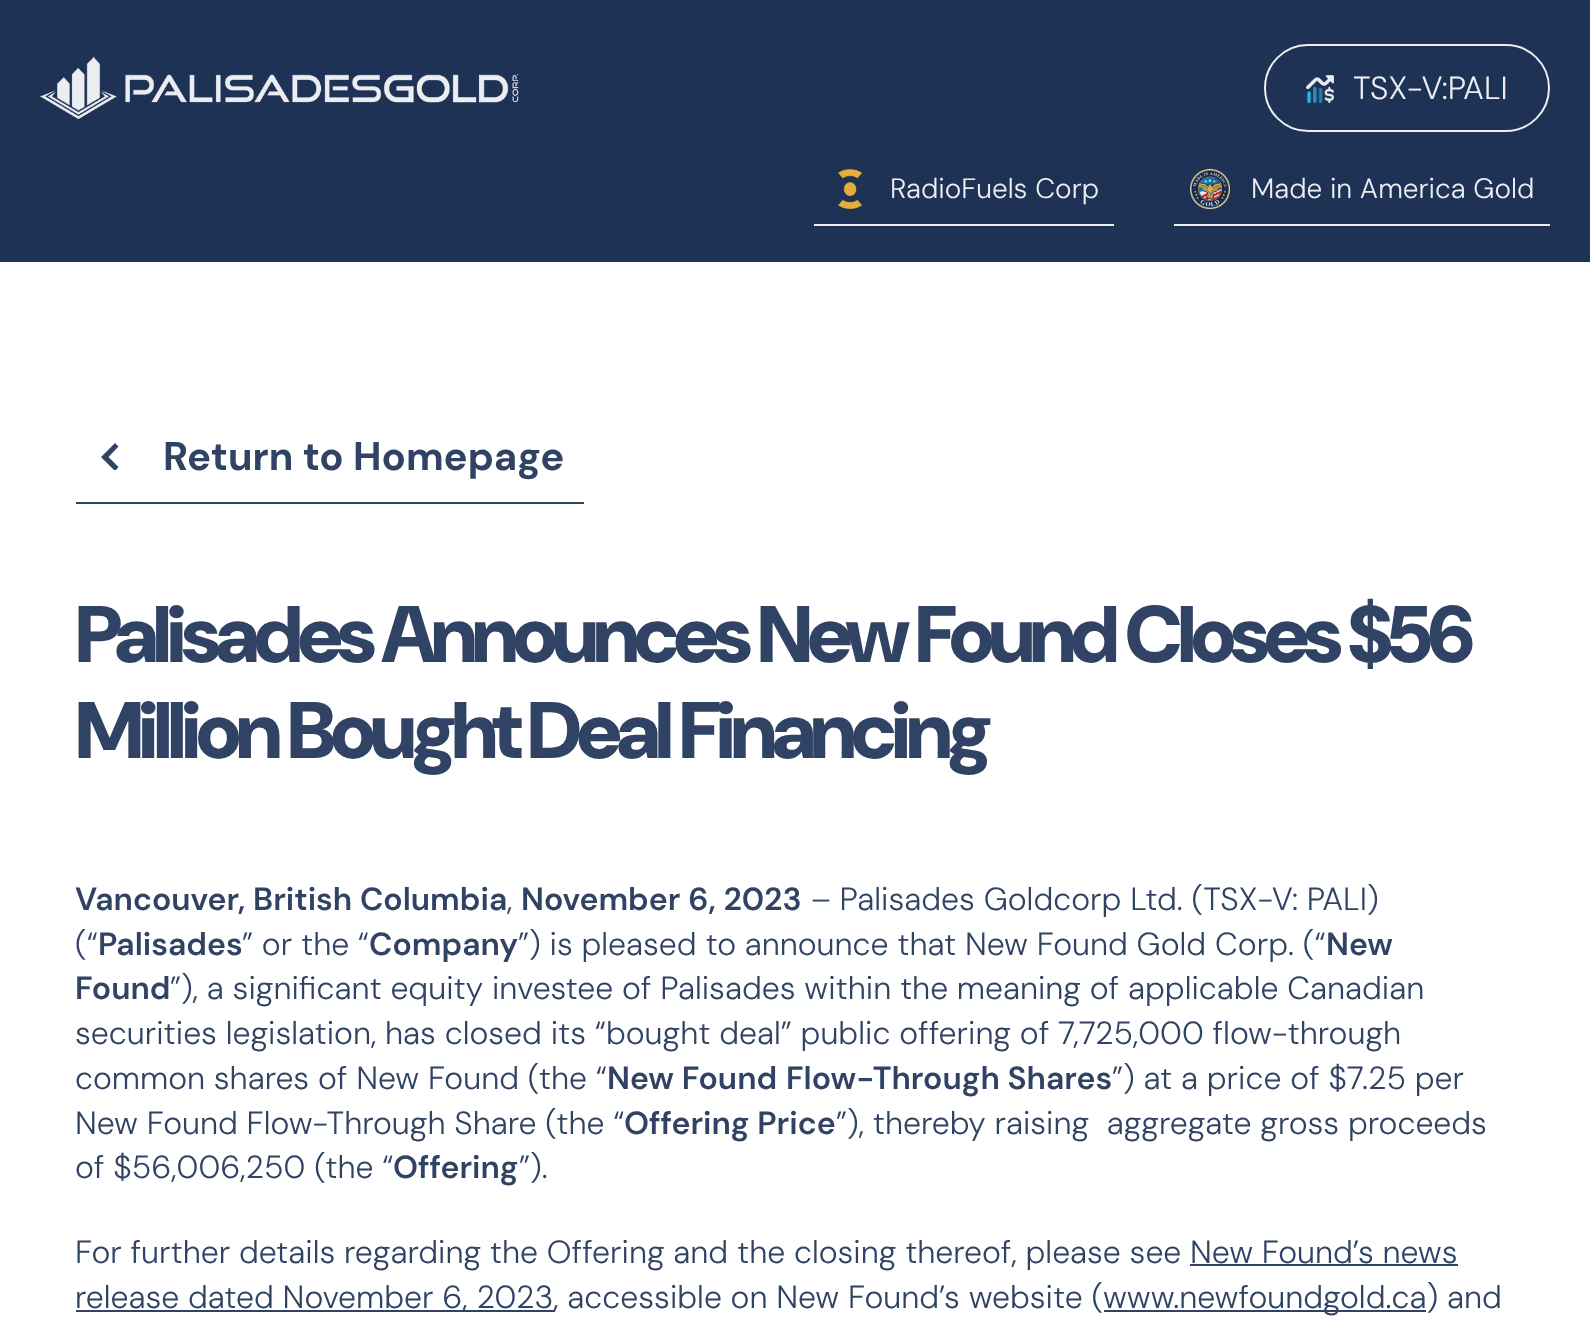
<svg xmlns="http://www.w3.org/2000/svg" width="1590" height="1324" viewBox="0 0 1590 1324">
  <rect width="100%" height="100%" fill="rgb(255,255,255)"/>
  <rect x="0" y="0" width="1590" height="262" fill="rgb(30,50,86)"/>
  <image x="40" y="57" width="479" height="62" href="pic1.png"/>
  <rect x="1265" y="45" width="284" height="86" rx="43" fill="none" stroke="rgb(236,238,241)" stroke-width="2"/>
  <image x="1306" y="75" width="28" height="28" href="pic2.png"/>
  <text x="1353" y="99" font-family="DM Sans" font-size="32" font-weight="300" fill="rgb(236,238,241)">TSX-V:PALI</text>
  <rect x="814" y="224" width="300" height="2" fill="rgb(236,238,241)"/>
  <image x="838" y="169" width="24" height="40" href="pic3.png"/>
  <text x="890" y="198" font-family="'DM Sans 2'" font-size="28" font-weight="300" fill="rgb(236,238,241)">RadioFuels Corp</text>
  <rect x="1174" y="224" width="376" height="2" fill="rgb(236,238,241)"/>
  <image x="1190" y="168" width="40" height="41" href="pic4.png"/>
  <text x="1251" y="198" font-family="'DM Sans 2'" font-size="28" font-weight="300" fill="rgb(236,238,241)">Made in America Gold</text>
  <rect x="76" y="502" width="508" height="2" fill="rgb(49,67,100)"/>
  <path d="M118.5 467L116 470H114L101 457L115 443L118.5 446.5L108.5 457Z" fill="rgb(49,67,100)"/>
  <text x="163" y="470" font-family="DM Sans" font-size="40" font-weight="bold" fill="rgb(49,67,100)">Return to Homepage</text>
  <g font-family="DM Sans" font-size="80" font-weight="900" letter-spacing="-5.6" fill="rgb(49,67,100)">
    <text>
      <tspan x="75" y="662">Palisades Announces New Found Closes $56</tspan>
      <tspan x="75" y="758">Million Bought Deal Financing</tspan>
    </text>
  </g>
  <text x="75" y="910" font-family="DM Sans" font-size="32" font-weight="600" fill="rgb(49,67,100)">Vancouver, British Columbia</text>
  <text x="507" y="910" font-family="DM Sans" font-size="32" font-weight="300" fill="rgb(49,67,100)">,</text>
  <text x="521" y="910" font-family="DM Sans" font-size="32" font-weight="600" fill="rgb(49,67,100)">November 6, 2023</text>
  <g font-family="DM Sans" font-size="32" font-weight="300" fill="rgb(49,67,100)">
    <text x="811" y="910">– Palisades Goldcorp Ltd. (TSX-V: PALI)</text>
    <text x="75" y="955">(“</text>
  </g>
  <text x="98" y="955" font-family="DM Sans" font-size="32" font-weight="600" fill="rgb(49,67,100)">Palisades</text>
  <text x="242" y="955" font-family="DM Sans" font-size="32" font-weight="300" fill="rgb(49,67,100)">” or the “</text>
  <text x="369" y="955" font-family="DM Sans" font-size="32" font-weight="600" fill="rgb(49,67,100)">Company</text>
  <text x="518" y="955" font-family="DM Sans" font-size="32" font-weight="300" fill="rgb(49,67,100)">”) is pleased to announce that New Found Gold Corp. (“</text>
  <g font-family="DM Sans" font-size="32" font-weight="600" fill="rgb(49,67,100)">
    <text x="1326" y="955">New</text>
    <text x="75" y="999">Found</text>
  </g>
  <g font-family="DM Sans" font-size="32" font-weight="300" fill="rgb(49,67,100)">
    <text x="170" y="999">”), a significant equity investee of Palisades within the meaning of applicable Canadian</text>
    <text>
      <tspan x="75" y="1044">securities legislation, has closed its “bought deal” public offering of 7,725,000 flow-through</tspan>
      <tspan x="75" y="1089">common shares of New Found (the “</tspan>
    </text>
  </g>
  <g font-family="DM Sans" font-size="32" font-weight="600" fill="rgb(49,67,100)">
    <text x="607" y="1089">New Found</text>
    <text x="786" y="1089">Flow-Through Shares</text>
  </g>
  <g font-family="DM Sans" font-size="32" font-weight="300" fill="rgb(49,67,100)">
    <text x="1112" y="1089">”) at a price of $7.25 per</text>
    <text x="75" y="1134">New Found Flow-Through Share (the “</text>
  </g>
  <text x="624" y="1134" font-family="DM Sans" font-size="32" font-weight="600" fill="rgb(49,67,100)">Offering Price</text>
  <g font-family="DM Sans" font-size="32" font-weight="300" fill="rgb(49,67,100)">
    <text x="836" y="1134" xml:space="preserve">”), thereby raising  aggregate gross proceeds</text>
    <text x="75" y="1178">of $56,006,250 (the “</text>
  </g>
  <text x="393" y="1178" font-family="DM Sans" font-size="32" font-weight="600" fill="rgb(49,67,100)">Offering</text>
  <g font-family="DM Sans" font-size="32" font-weight="300" fill="rgb(49,67,100)">
    <text x="519" y="1178">”).</text>
    <text x="75" y="1263">For further details regarding the Offering and the closing thereof, please see New Found’s news</text>
  </g>
  <rect x="76" y="1310" width="478" height="2" fill="rgb(49,67,100)"/>
  <text x="75" y="1308" font-family="DM Sans" font-size="32" font-weight="300" fill="rgb(49,67,100)">release dated November 6, 2023, accessible on New Found’s website (</text>
  <rect x="1190" y="1264" width="268" height="2" fill="rgb(49,67,100)"/>
  <rect x="1104" y="1310" width="322" height="2" fill="rgb(49,67,100)"/>
  <text x="1103" y="1308" font-family="DM Sans" font-size="32" font-weight="300" fill="rgb(49,67,100)">www.newfoundgold.ca) and</text>
</svg>
